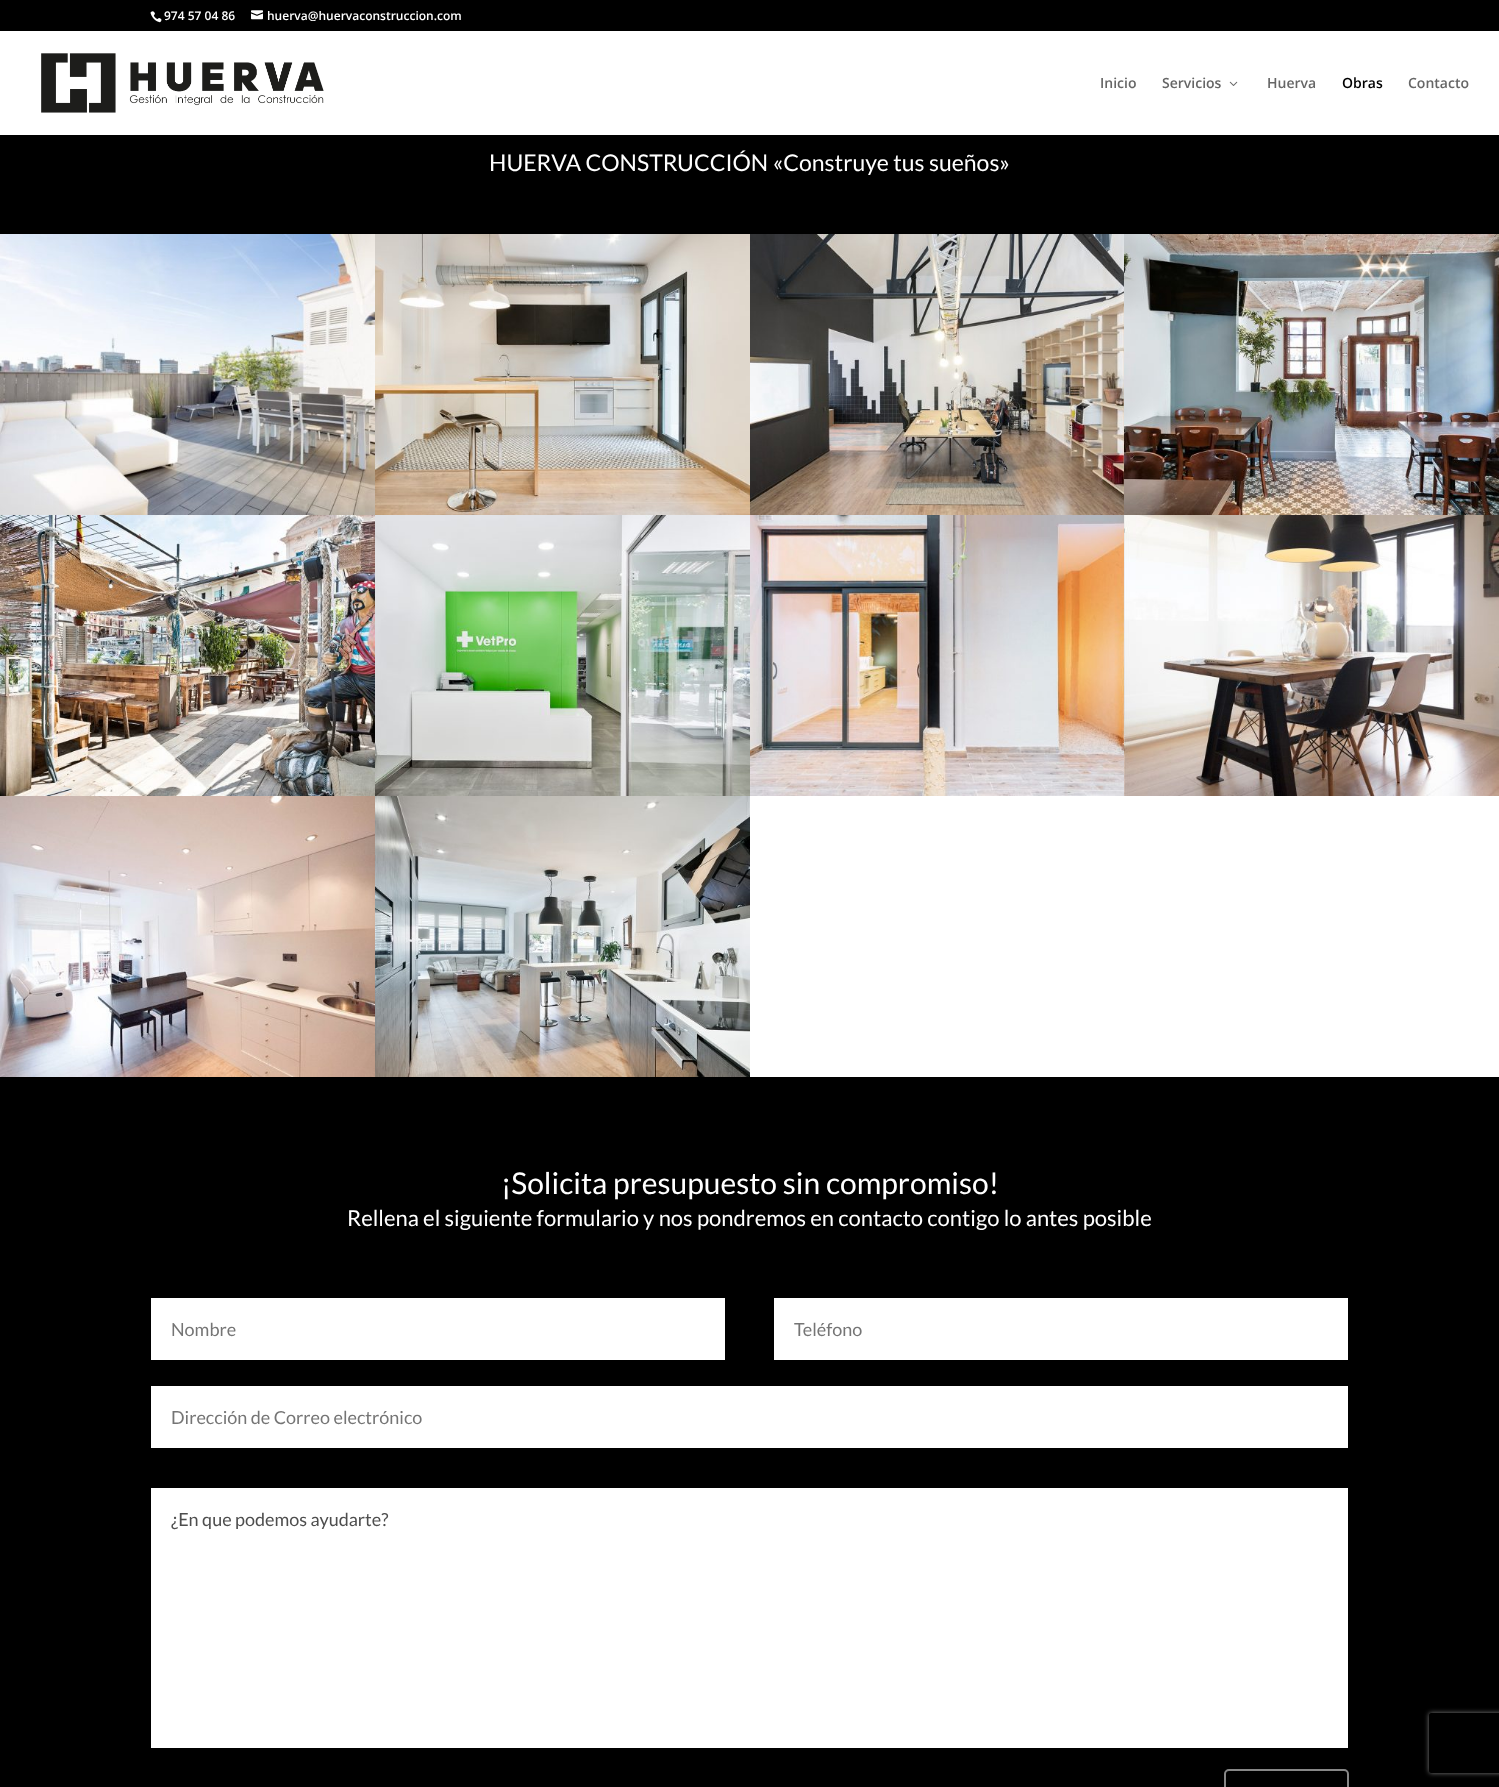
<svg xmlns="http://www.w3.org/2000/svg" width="1499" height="1787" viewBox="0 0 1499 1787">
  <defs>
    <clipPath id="clip1"><path d="M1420 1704H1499V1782H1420ZM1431 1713H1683C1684 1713 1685 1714 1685 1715V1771C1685 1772 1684 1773 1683 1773H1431C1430 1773 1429 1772 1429 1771V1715C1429 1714 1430 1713 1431 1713Z" clip-rule="evenodd"/></clipPath>
  </defs>
  <rect width="100%" height="100%" fill="rgb(255,255,255)"/>
  <rect x="0" y="0" width="1499" height="31" fill="rgb(0,0,0)"/>
  <image x="150" y="11" width="12" height="12" href="pic1.png"/>
  <text x="164" y="20" font-family="Open Sans" font-size="12" font-weight="600" fill="rgb(255,255,255)">974 57 04 86</text>
  <image x="251" y="10" width="12" height="10" href="pic2.png"/>
  <text x="267" y="20" font-family="Open Sans" font-size="12" font-weight="600" fill="rgb(255,255,255)">huerva@huervaconstruccion.com</text>
  <image x="41" y="53" width="283" height="60" href="pic3.png"/>
  <g font-family="Open Sans" font-size="14" font-weight="600" fill="rgb(102,102,102)">
    <text x="1100" y="88">Inicio</text>
    <text x="1162" y="88">Servicios</text>
  </g>
  <image x="1229" y="81" width="9" height="5" href="pic4.png"/>
  <text x="1267" y="88" font-family="Open Sans" font-size="14" font-weight="600" fill="rgb(102,102,102)">Huerva</text>
  <text x="1342" y="88" font-family="Open Sans" font-size="14" font-weight="600" fill="rgb(0,0,0)">Obras</text>
  <text x="1408" y="88" font-family="Open Sans" font-size="14" font-weight="600" fill="rgb(102,102,102)">Contacto</text>
  <rect x="0" y="135" width="1499" height="99" fill="rgb(0,0,0)"/>
  <text x="489" y="171" font-family="Lato" font-size="23" fill="rgb(255,255,255)">HUERVA CONSTRUCCIÓN «Construye tus sueños»</text>
  <image x="0" y="234" width="375" height="281" href="pic5.png"/>
  <image x="375" y="234" width="375" height="281" href="pic6.png"/>
  <image x="750" y="234" width="374" height="281" href="pic7.png"/>
  <image x="1124" y="234" width="375" height="281" href="pic8.png"/>
  <image x="0" y="515" width="375" height="281" href="pic9.png"/>
  <image x="375" y="515" width="375" height="281" href="pic10.png"/>
  <image x="750" y="515" width="374" height="281" href="pic11.png"/>
  <image x="1124" y="515" width="375" height="281" href="pic12.png"/>
  <image x="0" y="796" width="375" height="281" href="pic13.png"/>
  <image x="375" y="796" width="375" height="281" href="pic14.png"/>
  <rect x="0" y="1077" width="1499" height="710" fill="rgb(0,0,0)"/>
  <text x="501" y="1194" font-family="Lato" font-size="30" fill="rgb(255,255,255)">¡Solicita presupuesto sin compromiso!</text>
  <text x="347" y="1226" font-family="Lato" font-size="22" fill="rgb(255,255,255)">Rellena el siguiente formulario y nos pondremos en contacto contigo lo antes posible</text>
  <rect x="151" y="1298" width="574" height="62" fill="rgb(255,255,255)"/>
  <text x="171" y="1336" font-family="Lato" font-size="18" fill="rgb(117,117,117)">Nombre</text>
  <rect x="774" y="1298" width="574" height="62" fill="rgb(255,255,255)"/>
  <text x="794" y="1336" font-family="Lato" font-size="18" fill="rgb(117,117,117)">Teléfono</text>
  <rect x="151" y="1386" width="1197" height="62" fill="rgb(255,255,255)"/>
  <text x="171" y="1424" font-family="Lato" font-size="18" fill="rgb(117,117,117)">Dirección de Correo electrónico</text>
  <rect x="151" y="1488" width="1197" height="260" fill="rgb(255,255,255)"/>
  <text x="171" y="1526" font-family="Lato" font-size="18" fill="rgb(78,78,78)">¿En que podemos ayudarte?</text>
  <rect x="1225" y="1770" width="123" height="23" rx="4" fill="none" stroke="rgb(135,135,135)" stroke-width="2"/>
  <g clip-path="url(#clip1)">
    <rect x="1429" y="1713" width="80" height="60" rx="2" fill="rgb(128,128,128)" filter="blur(2.5px)"/>
  </g>
</svg>
